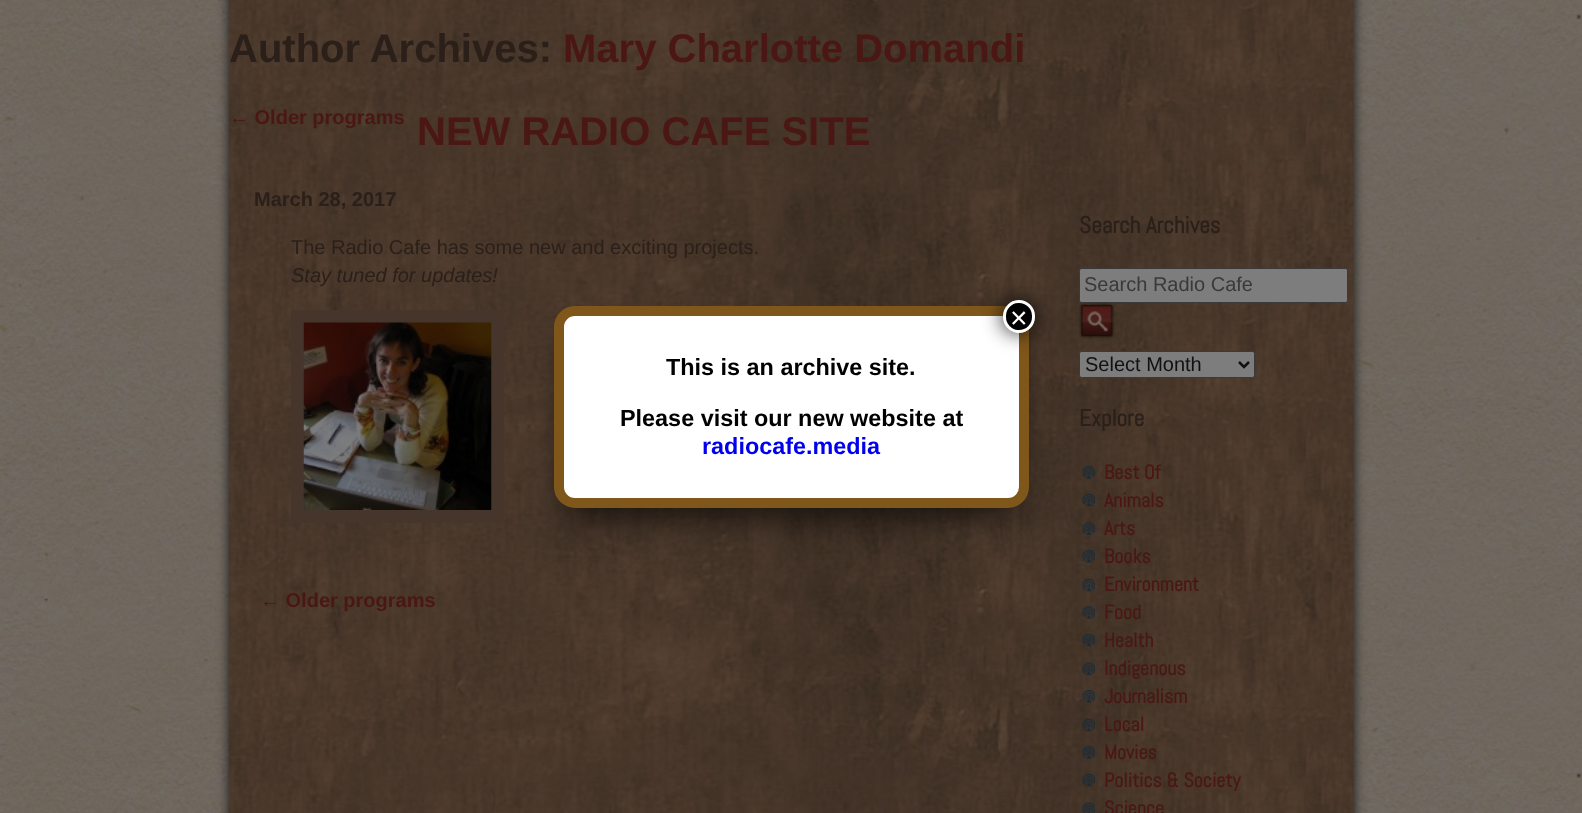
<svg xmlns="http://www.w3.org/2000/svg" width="1582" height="813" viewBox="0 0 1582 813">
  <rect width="100%" height="100%" fill="rgb(255,255,255)"/>
  <image x="0" y="0" width="1582" height="813" href="pic1.png"/>
  <rect x="229" y="-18" width="1125" height="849" fill="rgb(25,25,25)" filter="blur(6px)"/>
  <image x="228" y="0" width="1126" height="813" href="pic2.png"/>
  <text x="229" y="62" font-family="Liberation Sans" font-size="40" font-weight="bold" fill="rgb(42,31,25)">Author Archives:</text>
  <text x="563" y="62" font-family="Liberation Sans" font-size="40" font-weight="bold" fill="rgb(75,23,20)">Mary Charlotte Domandi</text>
  <text x="229" y="124" font-family="Liberation Sans" font-size="20" font-weight="bold" fill="rgb(75,23,20)">← Older programs</text>
  <text x="417" y="145" font-family="Liberation Sans" font-size="40" font-weight="bold" fill="rgb(75,23,20)">NEW RADIO CAFE SITE</text>
  <text x="1079" y="233" font-family="Abel" font-size="23.4" font-weight="bold" fill="rgb(42,31,25)">Search Archives</text>
  <rect x="1079.5" y="268.5" width="268" height="34" rx="2" fill="rgb(125,125,125)" stroke="rgb(58,58,58)"/>
  <text x="1084" y="291" font-family="Liberation Sans" font-size="20" fill="rgb(57,57,57)">Search Radio Cafe</text>
  <image x="1079" y="302" width="36" height="37" href="pic3.png"/>
  <rect x="1079.5" y="351.5" width="175" height="26" rx="2" fill="rgb(125,125,125)" stroke="rgb(58,58,58)"/>
  <path d="M1239 362L1244 367L1249 362" fill="none" stroke="rgb(17,17,17)" stroke-width="2.5"/>
  <text x="1085" y="371" font-family="Liberation Sans" font-size="20" fill="rgb(17,17,17)">Select Month</text>
  <text x="1079" y="426" font-family="Abel" font-size="23.4" font-weight="bold" fill="rgb(42,31,25)">Explore</text>
  <image x="1082" y="466" width="13" height="13" href="pic4.png"/>
  <text x="1104" y="479" font-family="Abel" font-size="20" font-weight="bold" fill="rgb(75,23,20)">Best Of</text>
  <image x="1082" y="493" width="13" height="14" href="pic5.png"/>
  <text x="1104" y="507" font-family="Abel" font-size="20" font-weight="bold" fill="rgb(75,23,20)">Animals</text>
  <image x="1082" y="522" width="13" height="13" href="pic6.png"/>
  <text x="1104" y="535" font-family="Abel" font-size="20" font-weight="bold" fill="rgb(75,23,20)">Arts</text>
  <image x="1082" y="550" width="13" height="13" href="pic7.png"/>
  <text x="1104" y="563" font-family="Abel" font-size="20" font-weight="bold" fill="rgb(75,23,20)">Books</text>
  <image x="1082" y="578" width="13" height="14" href="pic8.png"/>
  <text x="1104" y="591" font-family="Abel" font-size="20" font-weight="bold" fill="rgb(75,23,20)">Environment</text>
  <image x="1082" y="606" width="13" height="13" href="pic9.png"/>
  <text x="1104" y="619" font-family="Abel" font-size="20" font-weight="bold" fill="rgb(75,23,20)">Food</text>
  <image x="1082" y="633" width="13" height="14" href="pic10.png"/>
  <text x="1104" y="647" font-family="Abel" font-size="20" font-weight="bold" fill="rgb(75,23,20)">Health</text>
  <image x="1082" y="662" width="13" height="13" href="pic11.png"/>
  <text x="1104" y="675" font-family="Abel" font-size="20" font-weight="bold" fill="rgb(75,23,20)">Indigenous</text>
  <image x="1082" y="690" width="13" height="13" href="pic12.png"/>
  <text x="1104" y="703" font-family="Abel" font-size="20" font-weight="bold" fill="rgb(75,23,20)">Journalism</text>
  <image x="1082" y="718" width="13" height="14" href="pic13.png"/>
  <text x="1104" y="731" font-family="Abel" font-size="20" font-weight="bold" fill="rgb(75,23,20)">Local</text>
  <image x="1082" y="746" width="13" height="13" href="pic14.png"/>
  <text x="1104" y="759" font-family="Abel" font-size="20" font-weight="bold" fill="rgb(75,23,20)">Movies</text>
  <image x="1082" y="773" width="13" height="14" href="pic15.png"/>
  <text x="1104" y="787" font-family="Abel" font-size="20" font-weight="bold" fill="rgb(75,23,20)">Politics &amp; Society</text>
  <image x="1082" y="802" width="13" height="11" href="pic16.png"/>
  <text x="1104" y="815" font-family="Abel" font-size="20" font-weight="bold" fill="rgb(75,23,20)">Science</text>
  <text x="254" y="206" font-family="Liberation Sans" font-size="20" font-weight="bold" fill="rgb(42,31,25)">March 28, 2017</text>
  <text x="291" y="254" font-family="Liberation Sans" font-size="20" fill="rgb(42,31,25)">The Radio Cafe has some new and exciting projects.</text>
  <text x="291" y="282" font-family="Liberation Sans" font-size="20" font-style="italic" fill="rgb(42,31,25)">Stay tuned for updates!</text>
  <rect x="297.5" y="316.5" width="200" height="200" fill="none" stroke="rgb(70,53,42)" stroke-width="13"/>
  <image x="303" y="322" width="189" height="188" href="pic17.png"/>
  <text x="260" y="607" font-family="Liberation Sans" font-size="20" font-weight="bold" fill="rgb(75,23,20)">← Older programs</text>
  <rect x="566" y="340" width="450" height="176" rx="9" fill="rgba(2,2,2,0.72)" filter="blur(16px)"/>
  <rect x="559" y="311" width="465" height="192" rx="16" fill="rgb(255,255,255)" stroke="rgb(127,87,26)" stroke-width="10"/>
  <rect x="1001" y="299" width="35" height="35" rx="17.5" fill="rgba(2,2,2,0.75)" filter="blur(9.5px)"/>
  <rect x="1004.5" y="301.5" width="29" height="30" rx="14.5" fill="rgb(0,0,0)" stroke="rgb(255,255,255)" stroke-width="3"/>
  <text x="1010" y="328" font-family="Liberation Sans" font-size="30" fill="rgb(255,255,255)">×</text>
  <g font-family="Liberation Sans" font-size="23.4" font-weight="bold" fill="rgb(0,0,0)">
    <text x="666" y="375">This is an archive site.</text>
    <text x="620" y="426">Please visit our new website at</text>
  </g>
  <text x="702" y="454" font-family="Liberation Sans" font-size="23.4" font-weight="bold" fill="rgb(0,0,238)">radiocafe.media</text>
</svg>
